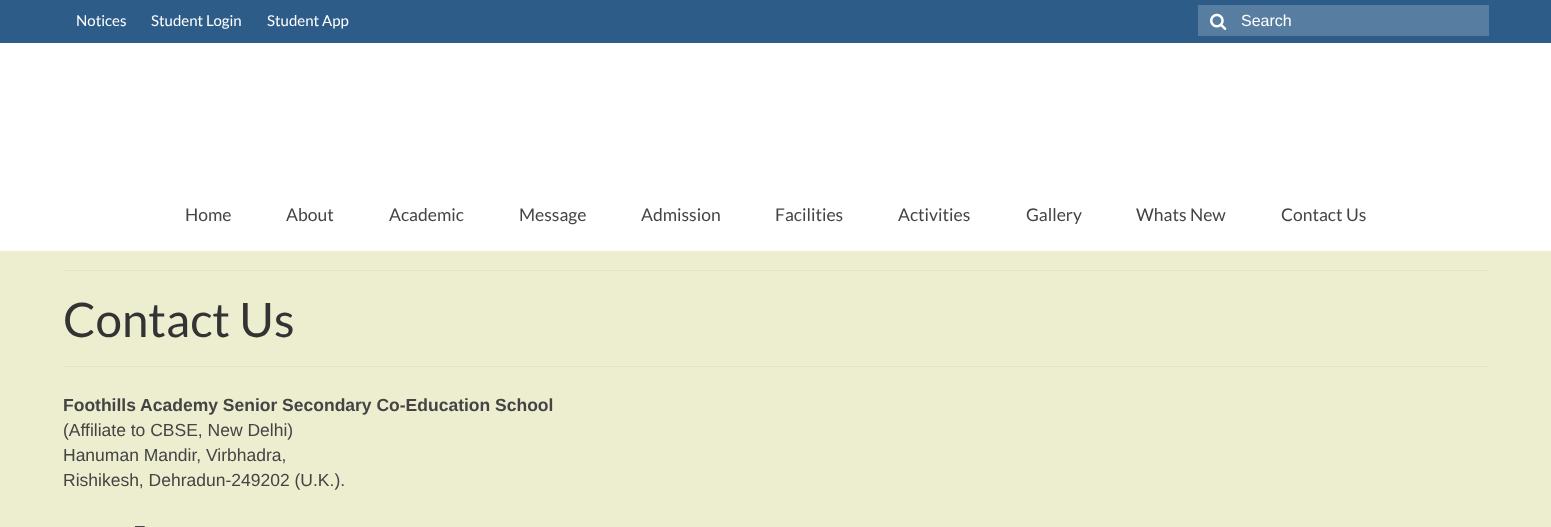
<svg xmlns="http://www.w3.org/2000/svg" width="1551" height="527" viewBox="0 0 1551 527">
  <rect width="100%" height="100%" fill="rgb(255,255,255)"/>
  <rect x="0" y="0" width="1551" height="43" fill="rgb(45,92,136)"/>
  <g font-family="Lato" font-size="15" fill="rgb(255,255,255)">
    <text x="76" y="26">Notices</text>
    <text x="151" y="26">Student Login</text>
    <text x="267" y="26">Student App</text>
  </g>
  <rect x="1198" y="5" width="291" height="31" fill="rgb(87,125,160)"/>
  <image x="1210" y="13" width="17" height="17" href="pic1.png"/>
  <text x="1241" y="26" font-family="Liberation Sans" font-size="16" fill="rgb(255,255,255)">Search</text>
  <g font-family="Lato" font-size="17.5" fill="rgb(68,68,68)">
    <text x="185" y="221">Home</text>
    <text x="286" y="221">About</text>
    <text x="389" y="221">Academic</text>
    <text x="519" y="221">Message</text>
    <text x="641" y="221">Admission</text>
    <text x="775" y="221">Facilities</text>
    <text x="898" y="221">Activities</text>
    <text x="1026" y="221">Gallery</text>
    <text x="1136" y="221">Whats New</text>
    <text x="1281" y="221">Contact Us</text>
  </g>
  <rect x="0" y="251" width="1551" height="276" fill="rgb(237,237,208)"/>
  <rect x="64" y="270" width="1425" height="1" fill="rgb(225,225,198)"/>
  <rect x="64" y="366" width="1425" height="1" fill="rgb(225,225,198)"/>
  <text x="63" y="337" font-family="Lato" font-size="47.5" fill="rgb(51,51,51)">Contact Us</text>
  <text x="63" y="411" font-family="Liberation Sans" font-size="17.5" font-weight="bold" fill="rgb(68,68,68)">Foothills Academy Senior Secondary Co-Education School</text>
  <g font-family="Liberation Sans" font-size="17.5" fill="rgb(68,68,68)">
    <text>
      <tspan x="63" y="436">(Affiliate to CBSE, New Delhi)</tspan>
      <tspan x="63" y="461">Hanuman Mandir, Virbhadra,</tspan>
      <tspan x="63" y="486">Rishikesh, Dehradun-249202 (U.K.).</tspan>
    </text>
    <text x="135" y="531">–</text>
  </g>
</svg>
